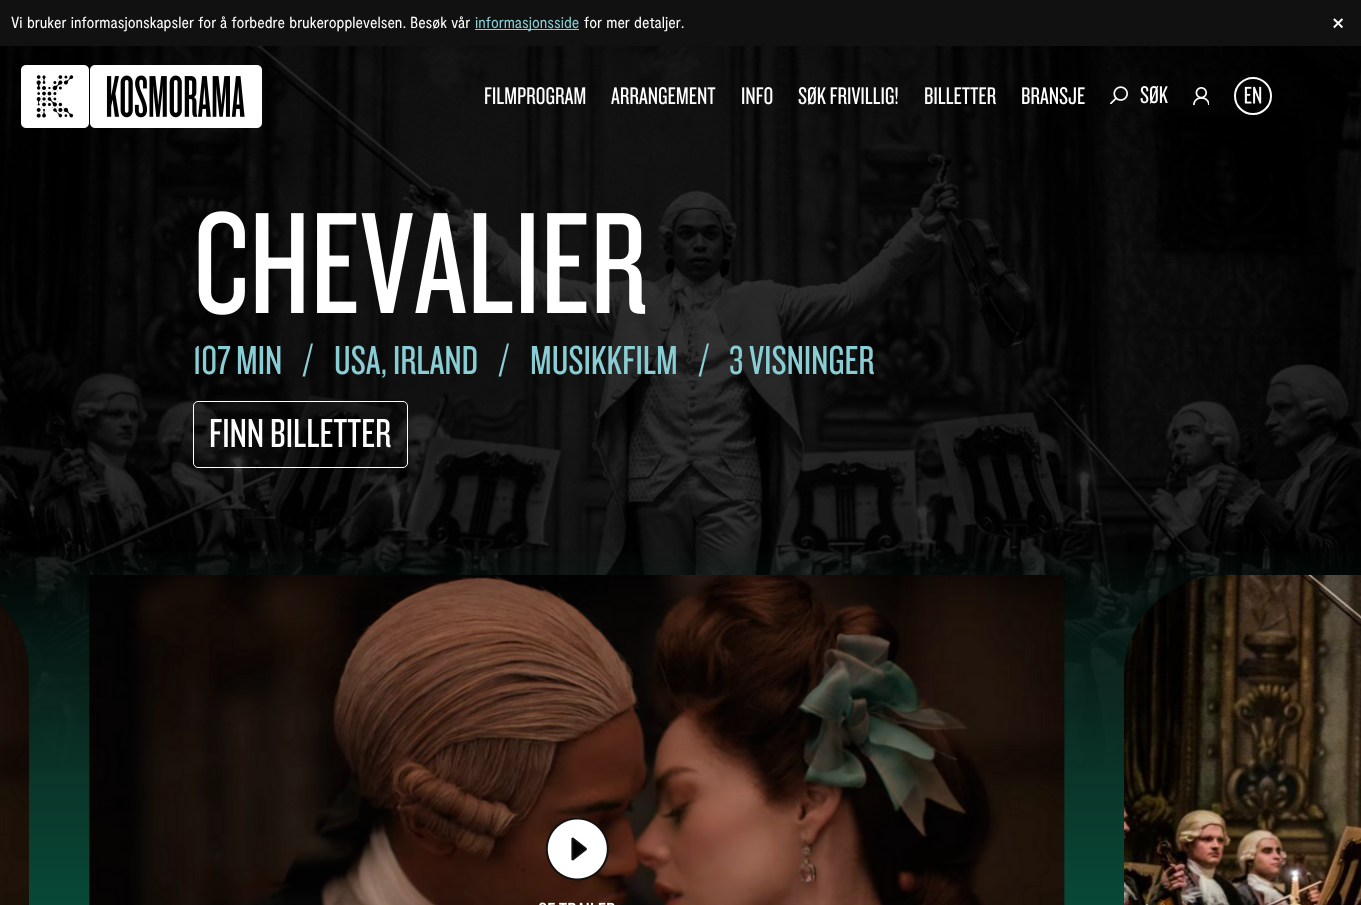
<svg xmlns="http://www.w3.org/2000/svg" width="1361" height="905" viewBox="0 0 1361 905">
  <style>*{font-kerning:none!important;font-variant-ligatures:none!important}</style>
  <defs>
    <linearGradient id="g1" gradientUnits="userSpaceOnUse" x1="681" y1="539" x2="681" y2="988"><stop offset="0" stop-color="rgb(5,85,63)" stop-opacity="0"/><stop offset="1" stop-color="rgb(5,85,63)"/></linearGradient>
  </defs>
  <rect width="100%" height="100%" fill="rgb(17,17,17)"/>
  <text x="11" y="28" font-family="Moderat" font-size="16" fill="rgb(255,255,255)">Vi bruker informasjonskapsler for</text>
  <text x="220" y="28" font-family="Moderat" font-size="16" fill="rgb(255,255,255)">å forbedre brukeropplevelsen.</text>
  <text x="410" y="28" font-family="Moderat" font-size="16" fill="rgb(255,255,255)">Besøk vår</text>
  <rect x="475" y="29" width="104" height="1" fill="rgb(137,206,212)"/>
  <text x="475" y="28" font-family="Moderat" font-size="16" fill="rgb(137,206,212)">informasjonsside</text>
  <text x="584" y="28" font-family="Moderat" font-size="16" fill="rgb(255,255,255)">for mer detaljer.</text>
  <image x="1333" y="18" width="10" height="11" href="pic1.png"/>
  <image x="0" y="46" width="1361" height="722" href="pic2.png"/>
  <image x="198" y="211" width="448" height="104" href="pic3.png"/>
  <image x="195" y="345" width="36" height="30" href="pic4.png"/>
  <image x="237" y="346" width="44" height="28" href="pic5.png"/>
  <path d="M313 343.5L305 376.5H302.5L311 343.5Z" fill="rgb(137,206,212)"/>
  <image x="335" y="345" width="142" height="33" href="pic6.png"/>
  <path d="M509 343.5L501 376.5H498.5L507 343.5Z" fill="rgb(137,206,212)"/>
  <image x="531" y="345" width="145" height="30" href="pic7.png"/>
  <path d="M709 343.5L701 376.5H698.5L707 343.5Z" fill="rgb(137,206,212)"/>
  <image x="730" y="345" width="12" height="30" href="pic8.png"/>
  <image x="749" y="345" width="125" height="30" href="pic9.png"/>
  <rect x="193.5" y="401.5" width="214" height="66" rx="4.5" fill="none" stroke="rgb(255,255,255)"/>
  <image x="210" y="419" width="181" height="29" href="pic10.png"/>
  <rect x="0" y="552" width="1361" height="353" fill="url(#g1)"/>
  <image x="0" y="604" width="29" height="301" href="pic11.png"/>
  <image x="89" y="575" width="976" height="330" href="pic12.png"/>
  <image x="546" y="818" width="63" height="63" href="pic13.png"/>
  <image x="539" y="902" width="76" height="3" href="pic14.png"/>
  <image x="1124" y="575" width="237" height="330" href="pic15.png"/>
  <image x="21" y="65" width="241" height="63" href="pic16.png"/>
  <image x="485" y="87" width="101" height="18" href="pic17.png"/>
  <image x="611" y="87" width="105" height="18" href="pic18.png"/>
  <image x="742" y="87" width="31" height="18" href="pic19.png"/>
  <image x="798" y="86" width="100" height="19" href="pic20.png"/>
  <image x="925" y="87" width="71" height="18" href="pic21.png"/>
  <image x="1022" y="87" width="63" height="18" href="pic22.png"/>
  <image x="1110" y="86" width="18" height="18" href="pic23.png"/>
  <image x="1140" y="85" width="28" height="19" href="pic24.png"/>
  <image x="1193" y="87" width="16" height="18" href="pic25.png"/>
  <circle cx="1253" cy="96" r="18" fill="none" stroke="rgb(255,255,255)" stroke-width="2"/>
  <image x="1244" y="86" width="18" height="18" href="pic26.png"/>
</svg>
